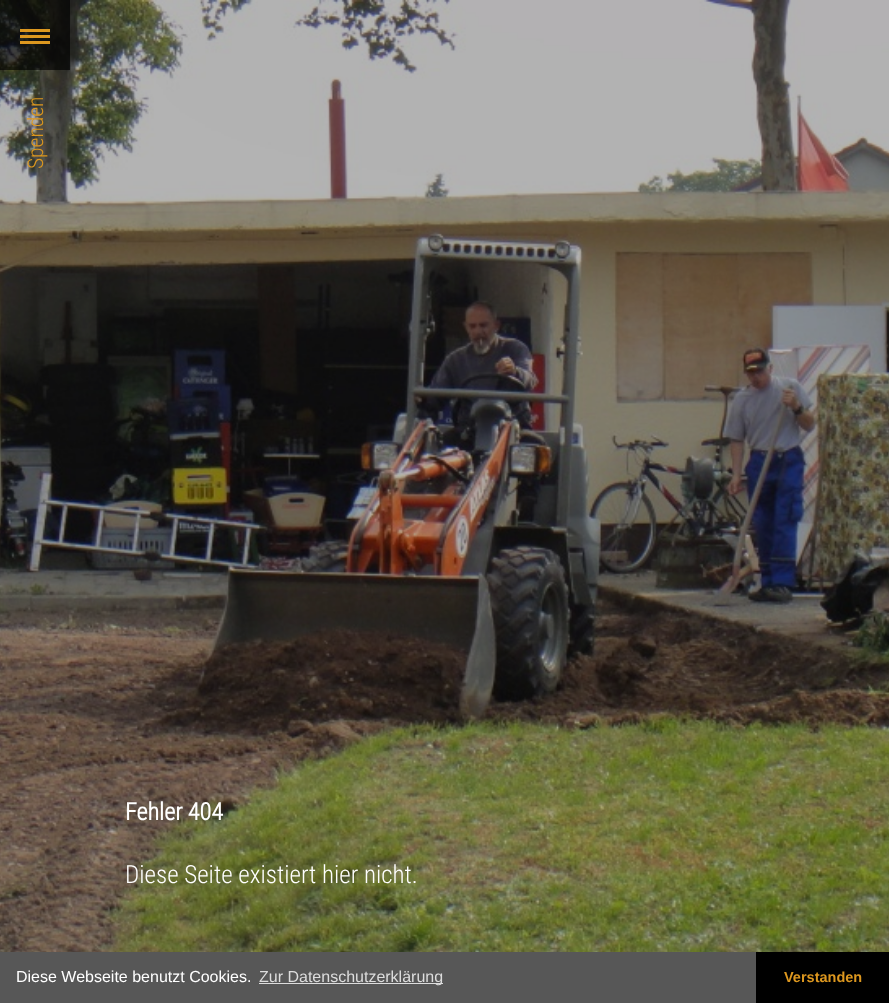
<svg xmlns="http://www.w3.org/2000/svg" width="889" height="1003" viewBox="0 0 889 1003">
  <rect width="100%" height="100%" fill="rgb(255,255,255)"/>
  <image x="0" y="0" width="889" height="952" href="pic1.png"/>
  <rect x="0" y="0" width="70" height="70" fill="rgba(0,0,0,0.65)"/>
  <rect x="20" y="35" width="30" height="3" fill="rgb(220,151,31)"/>
  <rect x="20" y="29" width="30" height="3" fill="rgb(220,151,31)"/>
  <rect x="20" y="41" width="30" height="3" fill="rgb(220,151,31)"/>
  <text x="43" y="169" transform="rotate(-90 43 169)" font-family="Roboto Condensed" font-size="21.5" font-weight="300" fill="rgb(220,151,31)">Spenden</text>
  <text x="125" y="820" font-family="Roboto Condensed" font-size="24" font-weight="bold" fill="rgb(255,255,255)">Fehler 404</text>
  <text x="125" y="883" font-family="Roboto Condensed" font-size="25" font-weight="300" fill="rgb(255,255,255)">Diese Seite existiert hier nicht.</text>
  <rect x="0" y="952" width="756" height="51" fill="rgb(87,87,87)"/>
  <text x="16" y="982" font-family="Liberation Sans" font-size="16" fill="rgb(255,255,255)">Diese Webseite benutzt Cookies.</text>
  <rect x="259" y="983" width="184" height="1" fill="rgb(221,221,221)"/>
  <text x="259" y="982" font-family="Liberation Sans" font-size="16" fill="rgb(221,221,221)">Zur Datenschutzerklärung</text>
  <rect x="756" y="952" width="133" height="51" fill="rgb(0,0,0)"/>
  <text x="784" y="982" font-family="Liberation Sans" font-size="14.5" font-weight="bold" fill="rgb(220,151,31)">Verstanden</text>
</svg>
